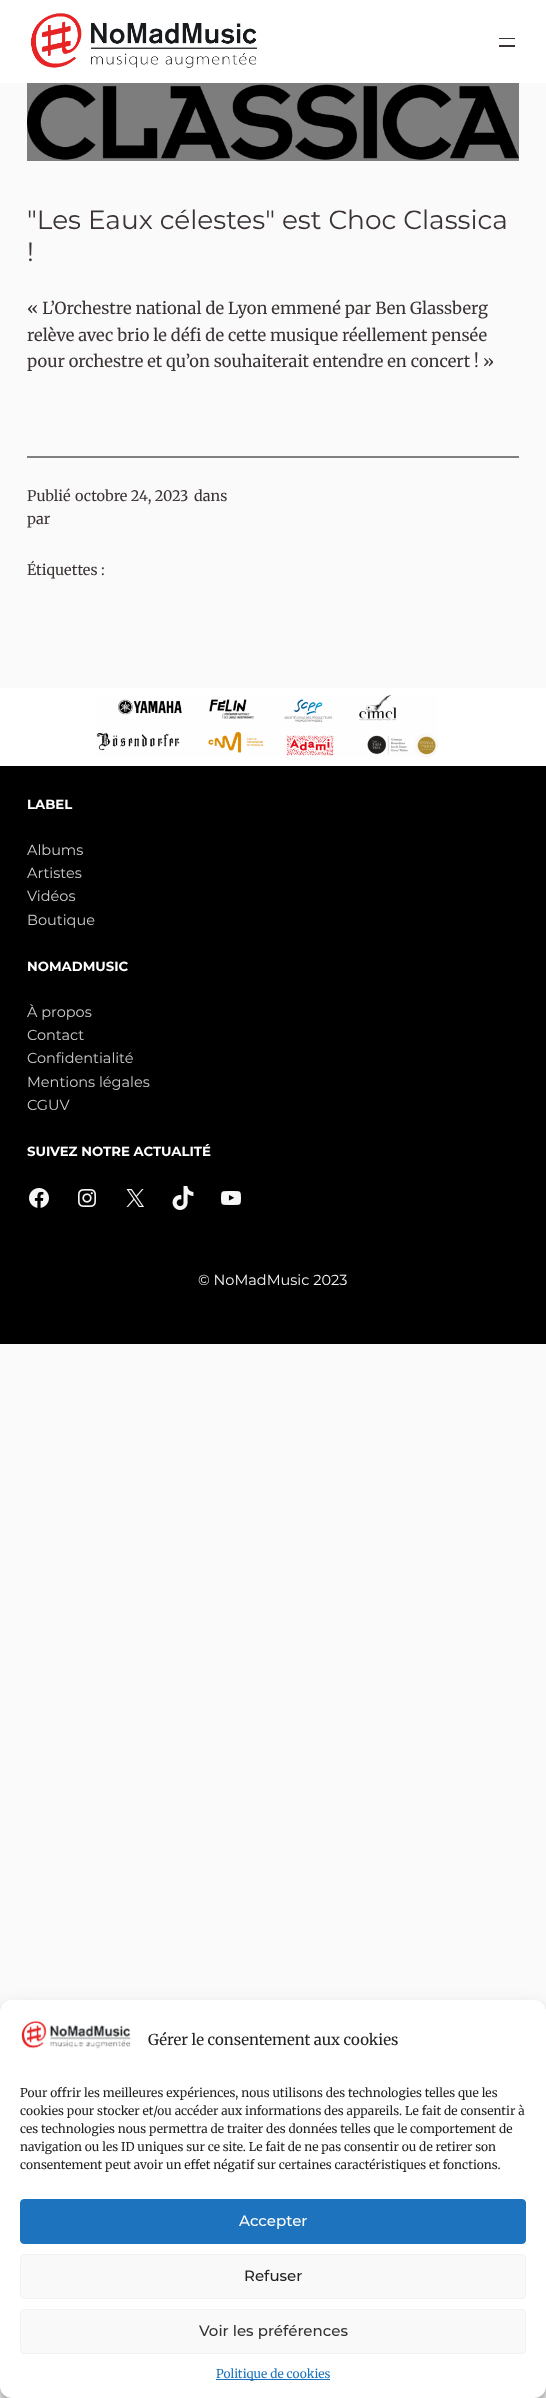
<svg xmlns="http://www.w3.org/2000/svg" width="546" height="2398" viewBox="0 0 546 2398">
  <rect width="100%" height="100%" fill="rgb(250,250,250)"/>
  <rect x="27" y="83" width="492" height="78" fill="rgb(125,125,125)"/>
  <rect x="0" y="0" width="546" height="83" fill="rgb(255,255,255)"/>
  <image x="30" y="13" width="227" height="55" href="pic1.png"/>
  <rect x="499" y="38" width="16" height="1" fill="rgb(59,51,51)"/>
  <rect x="499" y="45" width="16" height="2" fill="rgb(59,51,51)"/>
  <image x="27" y="84" width="492" height="76" href="pic2.png"/>
  <g font-family="Montserrat" font-size="26.4" fill="rgb(59,51,51)">
    <text>
      <tspan x="27" y="229">"Les Eaux célestes" est Choc Classica</tspan>
      <tspan x="27" y="261">!</tspan>
    </text>
  </g>
  <g font-family="Merriweather" font-size="16.5" fill="rgb(59,51,51)">
    <text>
      <tspan x="27" y="314">« L’Orchestre national de Lyon emmené par Ben Glassberg</tspan>
      <tspan x="27" y="341">relève avec brio le défi de cette musique réellement pensée</tspan>
      <tspan x="27" y="367">pour orchestre et qu’on souhaiterait entendre en concert ! »</tspan>
    </text>
  </g>
  <rect x="27" y="456" width="492" height="2" fill="rgb(128,128,128)"/>
  <g font-family="Merriweather" font-size="14.5" fill="rgb(59,51,51)">
    <text x="27" y="501">Publié</text>
    <text x="75" y="501">octobre 24, 2023</text>
    <text x="194" y="501">dans</text>
    <text x="27" y="524">par</text>
    <text x="27" y="575">Étiquettes :</text>
  </g>
  <rect x="0" y="688" width="546" height="78" fill="rgb(255,255,255)"/>
  <image x="96" y="694" width="342" height="63" href="pic3.png"/>
  <rect x="0" y="766" width="546" height="578" fill="rgb(0,0,0)"/>
  <text x="27" y="809" font-family="Montserrat" font-size="13.25" font-weight="bold" fill="rgb(255,255,255)">LABEL</text>
  <g font-family="Montserrat" font-size="14.5" fill="rgb(204,204,204)">
    <text>
      <tspan x="27" y="855">Albums</tspan>
      <tspan x="27" y="878">Artistes</tspan>
      <tspan x="27" y="901">Vidéos</tspan>
      <tspan x="27" y="925">Boutique</tspan>
    </text>
  </g>
  <text x="27" y="971" font-family="Montserrat" font-size="13.25" font-weight="bold" fill="rgb(255,255,255)">NOMADMUSIC</text>
  <g font-family="Montserrat" font-size="14.5" fill="rgb(204,204,204)">
    <text>
      <tspan x="27" y="1017">À propos</tspan>
      <tspan x="27" y="1040">Contact</tspan>
      <tspan x="27" y="1063">Confidentialité</tspan>
      <tspan x="27" y="1087">Mentions légales</tspan>
      <tspan x="27" y="1110">CGUV</tspan>
    </text>
  </g>
  <text x="27" y="1156" font-family="Montserrat" font-size="13.25" font-weight="bold" fill="rgb(255,255,255)">SUIVEZ NOTRE ACTUALITÉ</text>
  <image x="29" y="1188" width="20" height="20" href="pic4.png"/>
  <image x="78" y="1189" width="18" height="18" href="pic5.png"/>
  <image x="126" y="1189" width="18" height="18" href="pic6.png"/>
  <image x="172" y="1186" width="22" height="24" href="pic7.png"/>
  <image x="221" y="1191" width="20" height="14" href="pic8.png"/>
  <text x="198" y="1285" font-family="Montserrat" font-size="14.5" fill="rgb(246,246,246)">© NoMadMusic 2023</text>
  <rect x="0" y="2006" width="546" height="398" rx="12" fill="rgba(0,0,0,0.23)" filter="blur(3px)"/>
  <rect x="0" y="2010" width="546" height="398" rx="12" fill="rgba(0,0,0,0.19)" filter="blur(10px)"/>
  <rect x="0" y="2000" width="546" height="398" rx="12" fill="rgb(255,255,255)"/>
  <image x="21" y="2020" width="110" height="29" href="pic9.png"/>
  <text x="148" y="2045" font-family="Merriweather" font-size="15" fill="rgb(34,34,34)">Gérer le consentement aux cookies</text>
  <g font-family="Merriweather" font-size="12" fill="rgb(34,34,34)">
    <text>
      <tspan x="20" y="2097">Pour offrir les meilleures expériences, nous utilisons des technologies telles que les</tspan>
      <tspan x="20" y="2115">cookies pour stocker et/ou accéder aux informations des appareils. Le fait de consentir à</tspan>
      <tspan x="20" y="2133">ces technologies nous permettra de traiter des données telles que le comportement de</tspan>
      <tspan x="20" y="2151">navigation ou les ID uniques sur ce site. Le fait de ne pas consentir ou de retirer son</tspan>
      <tspan x="20" y="2169">consentement peut avoir un effet négatif sur certaines caractéristiques et fonctions.</tspan>
    </text>
  </g>
  <rect x="20.5" y="2199.5" width="505" height="44" rx="3.5" fill="rgb(30,115,190)" stroke="rgb(30,115,190)"/>
  <text x="239" y="2226" font-family="Montserrat" font-size="15" font-weight="500" fill="rgb(255,255,255)">Accepter</text>
  <rect x="20.5" y="2254.5" width="505" height="44" rx="3.5" fill="rgb(249,249,249)" stroke="rgb(242,242,242)"/>
  <text x="244" y="2281" font-family="Montserrat" font-size="15" font-weight="500" fill="rgb(34,34,34)">Refuser</text>
  <rect x="20.5" y="2309.5" width="505" height="44" rx="3.5" fill="rgb(249,249,249)" stroke="rgb(242,242,242)"/>
  <text x="199" y="2336" font-family="Montserrat" font-size="15" font-weight="500" fill="rgb(51,51,51)">Voir les préférences</text>
  <rect x="216" y="2379" width="114" height="1" fill="rgb(30,115,190)"/>
  <text x="216" y="2378" font-family="Merriweather" font-size="12" fill="rgb(30,115,190)">Politique de cookies</text>
</svg>
